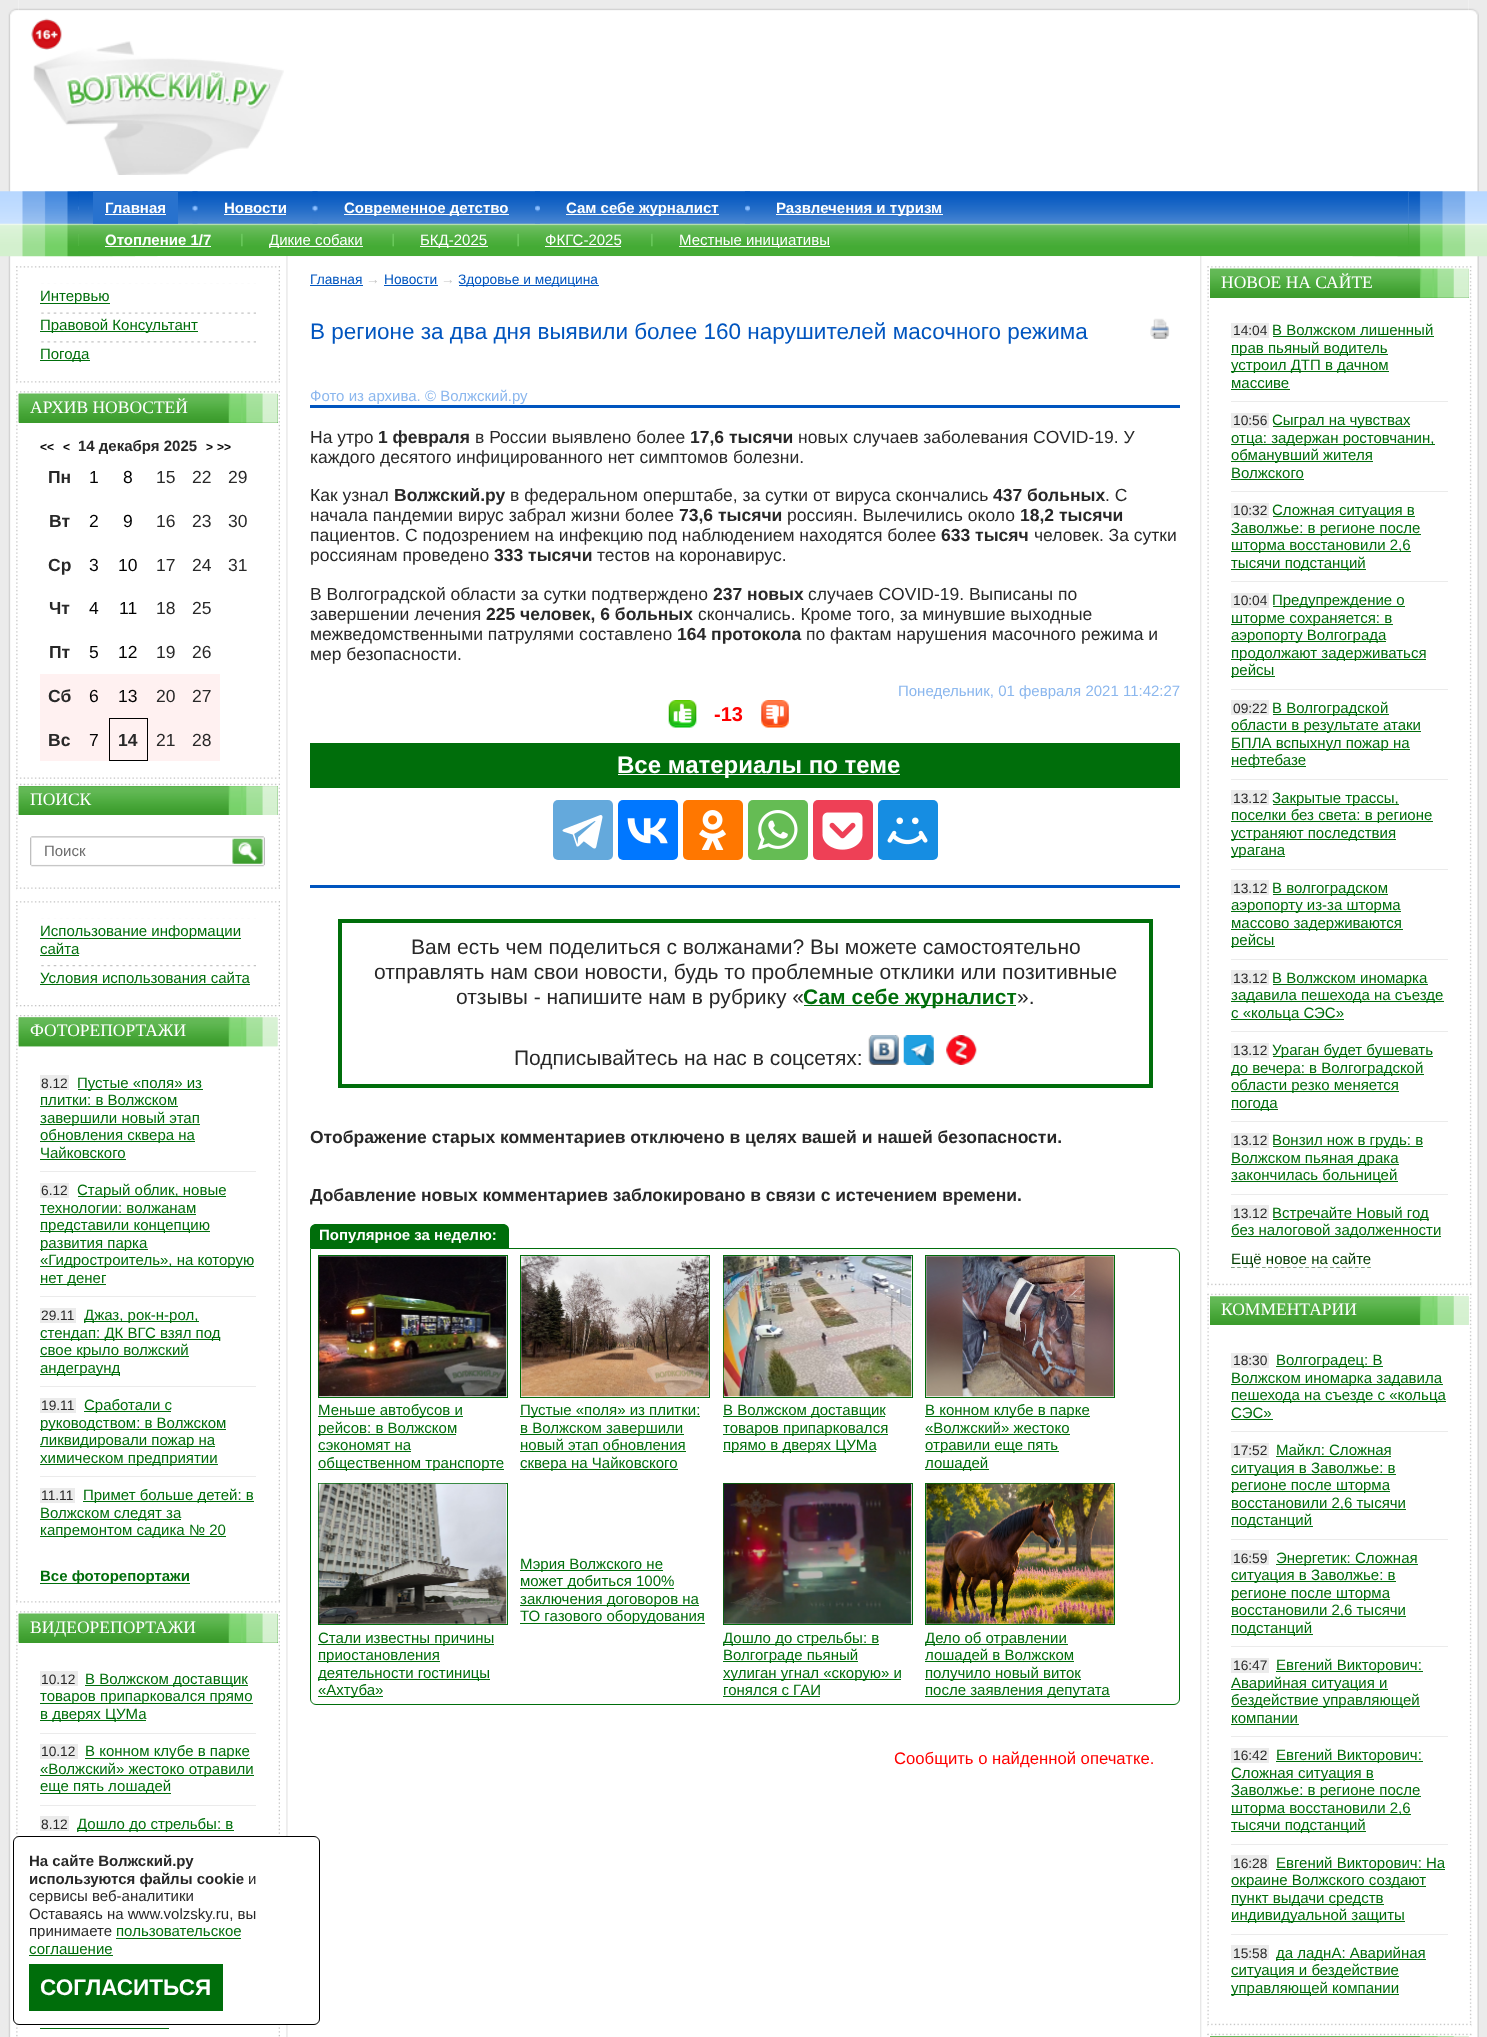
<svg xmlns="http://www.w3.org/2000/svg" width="1487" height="2037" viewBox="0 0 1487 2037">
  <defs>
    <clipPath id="clip1"><rect x="1231" y="313" width="217" height="955"/></clipPath>
  </defs>
  <rect width="100%" height="100%" fill="rgb(235,235,235)"/>
  <image x="8" y="0" width="1193" height="2037" href="pic1.png"/>
  <image x="1200" y="0" width="287" height="2037" href="pic2.png"/>
  <image x="1469" y="0" width="10" height="15" href="pic3.png"/>
  <image x="8" y="0" width="11" height="15" href="pic4.png"/>
  <rect x="286" y="0" width="916" height="192" fill="rgb(255,255,255)"/>
  <image x="19" y="0" width="1450" height="11" href="pic5.png"/>
  <image x="33" y="41" width="251" height="134" href="pic7.png"/>
  <image x="31" y="18" width="31" height="32" href="pic6.png"/>
  <image x="0" y="191" width="158" height="66" href="pic8.png"/>
  <image x="1330" y="191" width="157" height="66" href="pic9.png"/>
  <rect x="79" y="191" width="1330" height="33" fill="rgb(72,133,209)"/>
  <image x="78" y="191" width="1331" height="33" href="pic10.png"/>
  <image x="78" y="191" width="1" height="19" href="pic11.png"/>
  <rect x="93" y="191" width="85" height="33" fill="rgb(40,114,206)"/>
  <text x="105" y="213" font-family="Liberation Sans" font-size="15" font-weight="bold" fill="rgb(255,255,255)">Главная</text>
  <rect x="105" y="214" width="61" height="1" fill="rgb(255,255,255)"/>
  <image x="192" y="191" width="6" height="33" href="pic12.png"/>
  <text x="224" y="213" font-family="Liberation Sans" font-size="15" font-weight="bold" fill="rgb(255,255,255)">Новости</text>
  <rect x="224" y="214" width="62" height="1" fill="rgb(255,255,255)"/>
  <image x="312" y="191" width="6" height="33" href="pic12.png"/>
  <rect x="344" y="214" width="165" height="1" fill="rgb(255,255,255)"/>
  <text x="344" y="213" font-family="Liberation Sans" font-size="15" font-weight="bold" fill="rgb(255,255,255)">Современное детство</text>
  <image x="535" y="191" width="5" height="33" href="pic13.png"/>
  <rect x="566" y="214" width="153" height="1" fill="rgb(255,255,255)"/>
  <text x="566" y="213" font-family="Liberation Sans" font-size="15" font-weight="bold" fill="rgb(255,255,255)">Сам себе журналист</text>
  <image x="745" y="191" width="5" height="33" href="pic13.png"/>
  <rect x="776" y="214" width="167" height="1" fill="rgb(255,255,255)"/>
  <text x="776" y="213" font-family="Liberation Sans" font-size="15" font-weight="bold" fill="rgb(255,255,255)">Развлечения и туризм</text>
  <rect x="1408" y="224" width="1" height="21" fill="rgb(68,171,52)"/>
  <image x="79" y="223" width="1330" height="34" href="pic14.png"/>
  <rect x="78" y="234" width="1" height="12" fill="rgba(117,212,101,0.19)"/>
  <text x="105" y="245" font-family="Liberation Sans" font-size="15" font-weight="bold" fill="rgb(255,255,255)">Отопление 1/7</text>
  <rect x="105" y="246" width="106" height="1" fill="rgb(255,255,255)"/>
  <image x="241" y="233" width="2" height="14" href="pic15.png"/>
  <rect x="269" y="246" width="94" height="1" fill="rgb(255,255,255)"/>
  <text x="269" y="245" font-family="Liberation Sans" font-size="15" fill="rgb(255,255,255)">Дикие собаки</text>
  <image x="392" y="233" width="2" height="14" href="pic16.png"/>
  <rect x="420" y="246" width="68" height="1" fill="rgb(255,255,255)"/>
  <text x="420" y="245" font-family="Liberation Sans" font-size="15" fill="rgb(255,255,255)">БКД-2025</text>
  <image x="517" y="233" width="2" height="14" href="pic17.png"/>
  <text x="545" y="245" font-family="Liberation Sans" font-size="15" fill="rgb(255,255,255)">ФКГС-2025</text>
  <rect x="545" y="246" width="76" height="1" fill="rgb(255,255,255)"/>
  <image x="651" y="233" width="2" height="14" href="pic15.png"/>
  <rect x="679" y="246" width="151" height="1" fill="rgb(255,255,255)"/>
  <text x="679" y="245" font-family="Liberation Sans" font-size="15" fill="rgb(255,255,255)">Местные инициативы</text>
  <image x="16" y="266" width="264" height="118" href="pic18.png"/>
  <image x="16" y="266" width="264" height="4" href="pic19.png"/>
  <image x="16" y="381" width="264" height="3" href="pic20.png"/>
  <image x="41" y="283" width="215" height="1" href="pic21.png"/>
  <rect x="40" y="303" width="70" height="1" fill="rgb(0,110,11)"/>
  <text x="40" y="301" font-family="Liberation Sans" font-size="15" fill="rgb(0,110,11)">Интервью</text>
  <image x="41" y="312" width="215" height="2" href="pic22.png"/>
  <rect x="40" y="331" width="158" height="1" fill="rgb(0,110,11)"/>
  <text x="40" y="330" font-family="Liberation Sans" font-size="15" fill="rgb(0,110,11)">Правовой Консультант</text>
  <image x="41" y="341" width="215" height="2" href="pic23.png"/>
  <rect x="40" y="360" width="50" height="1" fill="rgb(0,110,11)"/>
  <text x="40" y="359" font-family="Liberation Sans" font-size="15" fill="rgb(0,110,11)">Погода</text>
  <image x="16" y="391" width="264" height="391" href="pic24.png"/>
  <image x="16" y="391" width="264" height="4" href="pic19.png"/>
  <image x="16" y="777" width="264" height="2" href="pic25.png"/>
  <rect x="19" y="394" width="259" height="29" fill="rgb(59,155,44)"/>
  <image x="18" y="393" width="260" height="30" href="pic26.png"/>
  <image x="18" y="393" width="260" height="30" href="pic27.png"/>
  <text x="30" y="413" font-family="Liberation Serif" font-size="17.5" fill="rgb(255,255,255)">АРХИВ НОВОСТЕЙ</text>
  <g font-family="Liberation Sans" font-size="12" font-weight="bold" fill="rgb(0,0,0)">
    <text x="40" y="451">&lt;&lt;</text>
    <text x="63" y="451">&lt;</text>
  </g>
  <text x="78" y="451" font-family="Liberation Sans" font-size="15" font-weight="bold" fill="rgb(40,40,40)">14 декабря 2025</text>
  <g font-family="Liberation Sans" font-size="12" font-weight="bold" fill="rgb(0,0,0)">
    <text x="206" y="451">&gt;</text>
    <text x="217" y="451">&gt;&gt;</text>
  </g>
  <text x="48" y="483" font-family="Liberation Sans" font-size="17.5" font-weight="bold" fill="rgb(40,40,40)">Пн</text>
  <g font-family="Liberation Sans" font-size="17.5" fill="rgb(0,0,0)">
    <text x="89" y="483">1</text>
    <text x="123" y="483">8</text>
  </g>
  <g font-family="Liberation Sans" font-size="17.5" fill="rgb(40,40,40)">
    <text x="156" y="483">15</text>
    <text x="192" y="483">22</text>
    <text x="228" y="483">29</text>
  </g>
  <text x="49" y="527" font-family="Liberation Sans" font-size="17.5" font-weight="bold" fill="rgb(40,40,40)">Вт</text>
  <g font-family="Liberation Sans" font-size="17.5" fill="rgb(0,0,0)">
    <text x="89" y="527">2</text>
    <text x="123" y="527">9</text>
  </g>
  <g font-family="Liberation Sans" font-size="17.5" fill="rgb(40,40,40)">
    <text x="156" y="527">16</text>
    <text x="192" y="527">23</text>
    <text x="228" y="527">30</text>
  </g>
  <text x="48" y="571" font-family="Liberation Sans" font-size="17.5" font-weight="bold" fill="rgb(40,40,40)">Ср</text>
  <g font-family="Liberation Sans" font-size="17.5" fill="rgb(0,0,0)">
    <text x="89" y="571">3</text>
    <text x="118" y="571">10</text>
  </g>
  <g font-family="Liberation Sans" font-size="17.5" fill="rgb(40,40,40)">
    <text x="156" y="571">17</text>
    <text x="192" y="571">24</text>
    <text x="228" y="571">31</text>
  </g>
  <text x="49" y="614" font-family="Liberation Sans" font-size="17.5" font-weight="bold" fill="rgb(40,40,40)">Чт</text>
  <g font-family="Liberation Sans" font-size="17.5" fill="rgb(0,0,0)">
    <text x="89" y="614">4</text>
    <text x="119" y="614">11</text>
  </g>
  <g font-family="Liberation Sans" font-size="17.5" fill="rgb(40,40,40)">
    <text x="156" y="614">18</text>
    <text x="192" y="614">25</text>
  </g>
  <text x="49" y="658" font-family="Liberation Sans" font-size="17.5" font-weight="bold" fill="rgb(40,40,40)">Пт</text>
  <g font-family="Liberation Sans" font-size="17.5" fill="rgb(0,0,0)">
    <text x="89" y="658">5</text>
    <text x="118" y="658">12</text>
  </g>
  <g font-family="Liberation Sans" font-size="17.5" fill="rgb(40,40,40)">
    <text x="156" y="658">19</text>
    <text x="192" y="658">26</text>
  </g>
  <rect x="40" y="674" width="180" height="44" fill="rgb(255,241,241)"/>
  <text x="48" y="702" font-family="Liberation Sans" font-size="17.5" font-weight="bold" fill="rgb(40,40,40)">Сб</text>
  <g font-family="Liberation Sans" font-size="17.5" fill="rgb(0,0,0)">
    <text x="89" y="702">6</text>
    <text x="118" y="702">13</text>
  </g>
  <g font-family="Liberation Sans" font-size="17.5" fill="rgb(40,40,40)">
    <text x="156" y="702">20</text>
    <text x="192" y="702">27</text>
  </g>
  <rect x="40" y="718" width="69" height="43" fill="rgb(255,241,241)"/>
  <text x="48" y="746" font-family="Liberation Sans" font-size="17.5" font-weight="bold" fill="rgb(40,40,40)">Вс</text>
  <text x="89" y="746" font-family="Liberation Sans" font-size="17.5" fill="rgb(0,0,0)">7</text>
  <rect x="109.5" y="718.5" width="38" height="42" fill="rgb(255,241,241)" stroke="rgb(0,0,0)"/>
  <text x="118" y="746" font-family="Liberation Sans" font-size="17.5" font-weight="bold" fill="rgb(40,40,40)">14</text>
  <rect x="148" y="718" width="72" height="43" fill="rgb(255,241,241)"/>
  <g font-family="Liberation Sans" font-size="17.5" fill="rgb(40,40,40)">
    <text x="156" y="746">21</text>
    <text x="192" y="746">28</text>
  </g>
  <image x="16" y="783" width="264" height="108" href="pic28.png"/>
  <image x="16" y="783" width="264" height="5" href="pic29.png"/>
  <image x="16" y="887" width="264" height="4" href="pic30.png"/>
  <rect x="19" y="786" width="259" height="29" fill="rgb(59,155,44)"/>
  <image x="18" y="786" width="260" height="29" href="pic31.png"/>
  <image x="18" y="786" width="260" height="29" href="pic32.png"/>
  <text x="30" y="805" font-family="Liberation Serif" font-size="17.5" fill="rgb(255,255,255)">ПОИСК</text>
  <image x="30" y="836" width="235" height="31" href="pic33.png"/>
  <text x="44" y="856" font-family="Liberation Sans" font-size="15" fill="rgb(108,108,108)">Поиск</text>
  <image x="16" y="901" width="264" height="107" href="pic34.png"/>
  <image x="16" y="901" width="264" height="4" href="pic19.png"/>
  <image x="16" y="1005" width="264" height="3" href="pic35.png"/>
  <image x="41" y="918" width="215" height="1" href="pic21.png"/>
  <rect x="40" y="938" width="201" height="1" fill="rgb(0,110,11)"/>
  <g font-family="Liberation Sans" font-size="15" fill="rgb(0,110,11)">
    <text>
      <tspan x="40" y="936">Использование информации</tspan>
      <tspan x="40" y="954">сайта</tspan>
    </text>
  </g>
  <rect x="40" y="955" width="39" height="1" fill="rgb(0,110,11)"/>
  <image x="41" y="965" width="215" height="2" href="pic36.png"/>
  <text x="40" y="983" font-family="Liberation Sans" font-size="15" fill="rgb(0,110,11)">Условия использования сайта</text>
  <rect x="40" y="984" width="210" height="1" fill="rgb(0,110,11)"/>
  <image x="16" y="1015" width="264" height="590" href="pic37.png"/>
  <image x="16" y="1015" width="264" height="4" href="pic38.png"/>
  <image x="16" y="1601" width="264" height="4" href="pic39.png"/>
  <image x="18" y="1017" width="260" height="30" href="pic40.png"/>
  <image x="18" y="1017" width="260" height="30" href="pic41.png"/>
  <text x="30" y="1036" font-family="Liberation Serif" font-size="17.5" fill="rgb(255,255,255)">ФОТОРЕПОРТАЖИ</text>
  <rect x="40" y="1075" width="29" height="15" fill="rgb(235,235,235)"/>
  <text x="41" y="1088" font-family="Liberation Sans" font-size="13.75" fill="rgb(40,40,40)">8.12</text>
  <rect x="78" y="1089" width="125" height="1" fill="rgb(0,110,11)"/>
  <g font-family="Liberation Sans" font-size="15" fill="rgb(0,110,11)">
    <text x="77" y="1088">Пустые «поля» из</text>
    <text x="40" y="1105">плитки: в Волжском</text>
  </g>
  <rect x="40" y="1106" width="138" height="1" fill="rgb(0,110,11)"/>
  <rect x="40" y="1124" width="160" height="1" fill="rgb(0,110,11)"/>
  <text x="40" y="1123" font-family="Liberation Sans" font-size="15" fill="rgb(0,110,11)">завершили новый этап</text>
  <rect x="40" y="1141" width="155" height="1" fill="rgb(0,110,11)"/>
  <g font-family="Liberation Sans" font-size="15" fill="rgb(0,110,11)">
    <text>
      <tspan x="40" y="1140">обновления сквера на</tspan>
      <tspan x="40" y="1158">Чайковского</tspan>
    </text>
  </g>
  <rect x="40" y="1159" width="86" height="1" fill="rgb(0,110,11)"/>
  <rect x="40" y="1171" width="216" height="1" fill="rgb(235,235,235)"/>
  <rect x="40" y="1183" width="29" height="15" fill="rgb(235,235,235)"/>
  <text x="41" y="1195" font-family="Liberation Sans" font-size="13.75" fill="rgb(40,40,40)">6.12</text>
  <rect x="78" y="1196" width="148" height="1" fill="rgb(0,110,11)"/>
  <g font-family="Liberation Sans" font-size="15" fill="rgb(0,110,11)">
    <text x="77" y="1195">Старый облик, новые</text>
    <text x="40" y="1213">технологии: волжанам</text>
  </g>
  <rect x="40" y="1214" width="156" height="1" fill="rgb(0,110,11)"/>
  <rect x="40" y="1231" width="170" height="1" fill="rgb(0,110,11)"/>
  <text x="40" y="1230" font-family="Liberation Sans" font-size="15" fill="rgb(0,110,11)">представили концепцию</text>
  <rect x="40" y="1249" width="108" height="1" fill="rgb(0,110,11)"/>
  <text x="40" y="1248" font-family="Liberation Sans" font-size="15" fill="rgb(0,110,11)">развития парка</text>
  <rect x="40" y="1266" width="214" height="1" fill="rgb(0,110,11)"/>
  <text x="40" y="1265" font-family="Liberation Sans" font-size="15" fill="rgb(0,110,11)">«Гидростроитель», на которую</text>
  <rect x="40" y="1284" width="66" height="1" fill="rgb(0,110,11)"/>
  <text x="40" y="1283" font-family="Liberation Sans" font-size="15" fill="rgb(0,110,11)">нет денег</text>
  <rect x="40" y="1296" width="216" height="1" fill="rgb(235,235,235)"/>
  <rect x="40" y="1308" width="36" height="15" fill="rgb(235,235,235)"/>
  <text x="41" y="1320" font-family="Liberation Sans" font-size="13.75" fill="rgb(40,40,40)">29.11</text>
  <rect x="84" y="1321" width="115" height="1" fill="rgb(0,110,11)"/>
  <text x="84" y="1320" font-family="Liberation Sans" font-size="15" fill="rgb(0,110,11)">Джаз, рок-н-рол,</text>
  <rect x="40" y="1339" width="180" height="1" fill="rgb(0,110,11)"/>
  <text x="40" y="1338" font-family="Liberation Sans" font-size="15" fill="rgb(0,110,11)">стендап: ДК ВГС взял под</text>
  <rect x="40" y="1356" width="149" height="1" fill="rgb(0,110,11)"/>
  <text x="40" y="1355" font-family="Liberation Sans" font-size="15" fill="rgb(0,110,11)">свое крыло волжский</text>
  <rect x="40" y="1374" width="80" height="1" fill="rgb(0,110,11)"/>
  <text x="40" y="1373" font-family="Liberation Sans" font-size="15" fill="rgb(0,110,11)">андеграунд</text>
  <rect x="40" y="1386" width="216" height="1" fill="rgb(235,235,235)"/>
  <rect x="40" y="1398" width="36" height="15" fill="rgb(235,235,235)"/>
  <text x="41" y="1410" font-family="Liberation Sans" font-size="13.75" fill="rgb(40,40,40)">19.11</text>
  <rect x="84" y="1411" width="87" height="1" fill="rgb(0,110,11)"/>
  <text x="84" y="1410" font-family="Liberation Sans" font-size="15" fill="rgb(0,110,11)">Сработали с</text>
  <rect x="40" y="1429" width="186" height="1" fill="rgb(0,110,11)"/>
  <text x="40" y="1428" font-family="Liberation Sans" font-size="15" fill="rgb(0,110,11)">руководством: в Волжском</text>
  <rect x="40" y="1446" width="175" height="1" fill="rgb(0,110,11)"/>
  <text x="40" y="1445" font-family="Liberation Sans" font-size="15" fill="rgb(0,110,11)">ликвидировали пожар на</text>
  <rect x="40" y="1464" width="178" height="1" fill="rgb(0,110,11)"/>
  <text x="40" y="1463" font-family="Liberation Sans" font-size="15" fill="rgb(0,110,11)">химическом предприятии</text>
  <rect x="40" y="1476" width="216" height="1" fill="rgb(235,235,235)"/>
  <rect x="40" y="1488" width="35" height="15" fill="rgb(235,235,235)"/>
  <text x="41" y="1500" font-family="Liberation Sans" font-size="13.75" fill="rgb(40,40,40)">11.11</text>
  <rect x="83" y="1501" width="171" height="1" fill="rgb(0,110,11)"/>
  <text x="83" y="1500" font-family="Liberation Sans" font-size="15" fill="rgb(0,110,11)">Примет больше детей: в</text>
  <rect x="40" y="1519" width="141" height="1" fill="rgb(0,110,11)"/>
  <text x="40" y="1518" font-family="Liberation Sans" font-size="15" fill="rgb(0,110,11)">Волжском следят за</text>
  <rect x="40" y="1536" width="186" height="1" fill="rgb(0,110,11)"/>
  <text x="40" y="1535" font-family="Liberation Sans" font-size="15" fill="rgb(0,110,11)">капремонтом садика № 20</text>
  <rect x="40" y="1583" width="150" height="1" fill="rgb(0,110,11)"/>
  <text x="40" y="1581" font-family="Liberation Sans" font-size="15" font-weight="bold" fill="rgb(0,110,11)">Все фоторепортажи</text>
  <image x="16" y="1611" width="264" height="426" href="pic42.png"/>
  <image x="16" y="1611" width="264" height="4" href="pic19.png"/>
  <rect x="19" y="1614" width="259" height="29" fill="rgb(59,155,44)"/>
  <image x="18" y="1613" width="260" height="30" href="pic26.png"/>
  <image x="18" y="1613" width="260" height="30" href="pic27.png"/>
  <text x="30" y="1633" font-family="Liberation Serif" font-size="17.5" fill="rgb(255,255,255)">ВИДЕОРЕПОРТАЖИ</text>
  <rect x="40" y="1671" width="38" height="15" fill="rgb(235,235,235)"/>
  <text x="41" y="1684" font-family="Liberation Sans" font-size="13.75" fill="rgb(40,40,40)">10.12</text>
  <rect x="85" y="1685" width="163" height="1" fill="rgb(0,110,11)"/>
  <text x="85" y="1684" font-family="Liberation Sans" font-size="15" fill="rgb(0,110,11)">В Волжском доставщик</text>
  <rect x="40" y="1703" width="213" height="1" fill="rgb(0,110,11)"/>
  <text x="40" y="1701" font-family="Liberation Sans" font-size="15" fill="rgb(0,110,11)">товаров припарковался прямо</text>
  <rect x="40" y="1720" width="106" height="1" fill="rgb(0,110,11)"/>
  <text x="40" y="1719" font-family="Liberation Sans" font-size="15" fill="rgb(0,110,11)">в дверях ЦУМа</text>
  <rect x="40" y="1733" width="216" height="1" fill="rgb(235,235,235)"/>
  <rect x="40" y="1744" width="38" height="15" fill="rgb(235,235,235)"/>
  <text x="41" y="1756" font-family="Liberation Sans" font-size="13.75" fill="rgb(40,40,40)">10.12</text>
  <rect x="85" y="1758" width="165" height="1" fill="rgb(0,110,11)"/>
  <text x="85" y="1756" font-family="Liberation Sans" font-size="15" fill="rgb(0,110,11)">В конном клубе в парке</text>
  <rect x="40" y="1775" width="214" height="1" fill="rgb(0,110,11)"/>
  <text x="40" y="1774" font-family="Liberation Sans" font-size="15" fill="rgb(0,110,11)">«Волжский» жестоко отравили</text>
  <rect x="40" y="1793" width="131" height="1" fill="rgb(0,110,11)"/>
  <text x="40" y="1791" font-family="Liberation Sans" font-size="15" fill="rgb(0,110,11)">еще пять лошадей</text>
  <rect x="40" y="1805" width="216" height="1" fill="rgb(235,235,235)"/>
  <rect x="40" y="1816" width="29" height="15" fill="rgb(235,235,235)"/>
  <text x="41" y="1829" font-family="Liberation Sans" font-size="13.75" fill="rgb(40,40,40)">8.12</text>
  <rect x="78" y="1830" width="156" height="1" fill="rgb(0,110,11)"/>
  <text x="77" y="1829" font-family="Liberation Sans" font-size="15" fill="rgb(0,110,11)">Дошло до стрельбы: в</text>
  <rect x="40" y="2028" width="129" height="1" fill="rgb(0,110,11)"/>
  <text x="310" y="284" font-family="Liberation Sans" font-size="13.75" fill="rgb(0,85,191)">Главная</text>
  <rect x="310" y="285" width="53" height="1" fill="rgb(0,85,191)"/>
  <text x="366" y="284" font-family="Liberation Sans" font-size="13.75" fill="rgb(196,196,196)">→</text>
  <text x="384" y="284" font-family="Liberation Sans" font-size="13.75" fill="rgb(0,85,191)">Новости</text>
  <rect x="384" y="285" width="54" height="1" fill="rgb(0,85,191)"/>
  <text x="441" y="284" font-family="Liberation Sans" font-size="13.75" fill="rgb(196,196,196)">→</text>
  <rect x="459" y="285" width="140" height="1" fill="rgb(0,85,191)"/>
  <text x="458" y="284" font-family="Liberation Sans" font-size="13.75" fill="rgb(0,85,191)">Здоровье и медицина</text>
  <text x="310" y="339" font-family="Liberation Sans" font-size="22.5" fill="rgb(0,85,191)">В регионе за два дня выявили более 160 нарушителей масочного режима</text>
  <image x="1150" y="318" width="20" height="21" href="pic43.png"/>
  <rect x="310" y="405" width="870" height="3" fill="rgb(0,85,191)"/>
  <text x="310" y="401" font-family="Liberation Sans" font-size="15" fill="rgb(139,183,238)">Фото из архива. © Волжский.ру</text>
  <text x="310" y="443" font-family="Liberation Sans" font-size="17.5" fill="rgb(40,40,40)">На утро</text>
  <text x="378" y="443" font-family="Liberation Sans" font-size="17.5" font-weight="bold" fill="rgb(40,40,40)">1 февраля</text>
  <text x="475" y="443" font-family="Liberation Sans" font-size="17.5" fill="rgb(40,40,40)">в России выявлено более</text>
  <text x="690" y="443" font-family="Liberation Sans" font-size="17.5" font-weight="bold" fill="rgb(40,40,40)">17,6 тысячи</text>
  <g font-family="Liberation Sans" font-size="17.5" fill="rgb(40,40,40)">
    <text x="798" y="443">новых случаев заболевания COVID-19. У</text>
    <text x="310" y="463">каждого десятого инфицированного нет симптомов болезни.</text>
    <text x="310" y="501">Как узнал</text>
  </g>
  <text x="394" y="501" font-family="Liberation Sans" font-size="17.5" font-weight="bold" fill="rgb(40,40,40)">Волжский.ру</text>
  <text x="510" y="501" font-family="Liberation Sans" font-size="17.5" fill="rgb(40,40,40)">в федеральном оперштабе, за сутки от вируса скончались</text>
  <text x="993" y="501" font-family="Liberation Sans" font-size="17.5" font-weight="bold" fill="rgb(40,40,40)">437 больных</text>
  <g font-family="Liberation Sans" font-size="17.5" fill="rgb(40,40,40)">
    <text x="1105" y="501">. С</text>
    <text x="310" y="521">начала пандемии вирус забрал жизни более</text>
  </g>
  <text x="679" y="521" font-family="Liberation Sans" font-size="17.5" font-weight="bold" fill="rgb(40,40,40)">73,6 тысячи</text>
  <text x="787" y="521" font-family="Liberation Sans" font-size="17.5" fill="rgb(40,40,40)">россиян. Вылечились около</text>
  <text x="1020" y="521" font-family="Liberation Sans" font-size="17.5" font-weight="bold" fill="rgb(40,40,40)">18,2 тысячи</text>
  <text x="310" y="541" font-family="Liberation Sans" font-size="17.5" fill="rgb(40,40,40)">пациентов. С подозрением на инфекцию под наблюдением находятся более</text>
  <text x="941" y="541" font-family="Liberation Sans" font-size="17.5" font-weight="bold" fill="rgb(40,40,40)">633 тысяч</text>
  <g font-family="Liberation Sans" font-size="17.5" fill="rgb(40,40,40)">
    <text x="1034" y="541">человек. За сутки</text>
    <text x="310" y="561">россиянам проведено</text>
  </g>
  <text x="494" y="561" font-family="Liberation Sans" font-size="17.5" font-weight="bold" fill="rgb(40,40,40)">333 тысячи</text>
  <g font-family="Liberation Sans" font-size="17.5" fill="rgb(40,40,40)">
    <text x="597" y="561">тестов на коронавирус.</text>
    <text x="310" y="600">В Волгоградской области за сутки подтверждено</text>
  </g>
  <text x="713" y="600" font-family="Liberation Sans" font-size="17.5" font-weight="bold" fill="rgb(40,40,40)">237 новых</text>
  <g font-family="Liberation Sans" font-size="17.5" fill="rgb(40,40,40)">
    <text x="808" y="600">случаев COVID-19. Выписаны по</text>
    <text x="310" y="620">завершении лечения</text>
  </g>
  <text x="486" y="620" font-family="Liberation Sans" font-size="17.5" font-weight="bold" fill="rgb(40,40,40)">225 человек, 6 больных</text>
  <g font-family="Liberation Sans" font-size="17.5" fill="rgb(40,40,40)">
    <text x="698" y="620">скончались. Кроме того, за минувшие выходные</text>
    <text x="310" y="640">межведомственными патрулями составлено</text>
  </g>
  <text x="677" y="640" font-family="Liberation Sans" font-size="17.5" font-weight="bold" fill="rgb(40,40,40)">164 протокола</text>
  <g font-family="Liberation Sans" font-size="17.5" fill="rgb(40,40,40)">
    <text x="806" y="640">по фактам нарушения масочного режима и</text>
    <text x="310" y="660">мер безопасности.</text>
  </g>
  <text x="898" y="696" font-family="Liberation Sans" font-size="15" fill="rgb(139,183,238)">Понедельник, 01 февраля 2021 11:42:27</text>
  <image x="668" y="700" width="29" height="28" href="pic44.png"/>
  <text x="714" y="721" font-family="Liberation Sans" font-size="20" font-weight="bold" fill="rgb(255,0,0)">-13</text>
  <image x="761" y="700" width="28" height="28" href="pic45.png"/>
  <rect x="310" y="743" width="870" height="45" fill="rgb(0,110,11)"/>
  <rect x="618" y="774" width="282" height="1" fill="rgb(255,255,255)"/>
  <text x="617" y="773" font-family="Liberation Sans" font-size="24" font-weight="bold" fill="rgb(255,255,255)">Все материалы по теме</text>
  <rect x="310" y="885" width="870" height="3" fill="rgb(0,85,191)"/>
  <rect x="553" y="800" width="60" height="60" rx="5" fill="rgb(100,169,220)"/>
  <image x="562" y="815" width="41" height="34" href="pic46.png"/>
  <rect x="618" y="800" width="60" height="60" rx="5" fill="rgb(0,119,255)"/>
  <image x="627" y="818" width="41" height="26" href="pic47.png"/>
  <rect x="683" y="800" width="60" height="60" rx="5" fill="rgb(255,119,0)"/>
  <image x="699" y="810" width="27" height="40" href="pic48.png"/>
  <rect x="748" y="800" width="60" height="60" rx="5" fill="rgb(101,188,84)"/>
  <image x="757" y="810" width="41" height="40" href="pic49.png"/>
  <rect x="813" y="800" width="60" height="60" rx="5" fill="rgb(238,64,86)"/>
  <image x="822" y="812" width="41" height="38" href="pic50.png"/>
  <rect x="878" y="800" width="60" height="60" rx="5" fill="rgb(22,141,226)"/>
  <image x="887" y="817" width="41" height="28" href="pic51.png"/>
  <rect x="340" y="921" width="811" height="165" fill="none" stroke="rgb(0,110,11)" stroke-width="4"/>
  <g font-family="Liberation Sans" font-size="21" fill="rgb(40,40,40)">
    <text x="411" y="954">Вам есть чем поделиться с волжанами? Вы можете самостоятельно</text>
    <text x="374" y="979">отправлять нам свои новости, будь то проблемные отклики или позитивные</text>
    <text x="456" y="1004">отзывы - напишите нам в рубрику «</text>
  </g>
  <rect x="804" y="1005" width="212" height="1" fill="rgb(0,110,11)"/>
  <text x="803" y="1004" font-family="Liberation Sans" font-size="21" font-weight="bold" fill="rgb(0,110,11)">Сам себе журналист</text>
  <g font-family="Liberation Sans" font-size="21" fill="rgb(40,40,40)">
    <text x="1017" y="1004">».</text>
    <text x="514" y="1065">Подписывайтесь на нас в соцсетях:</text>
  </g>
  <image x="868" y="1035" width="31" height="30" href="pic52.png"/>
  <image x="903" y="1035" width="31" height="30" href="pic53.png"/>
  <image x="946" y="1035" width="31" height="30" href="pic54.png"/>
  <g font-family="Liberation Sans" font-size="17.5" font-weight="bold" fill="rgb(40,40,40)">
    <text x="310" y="1143">Отображение старых комментариев отключено в целях вашей и нашей безопасности.</text>
    <text x="310" y="1201">Добавление новых комментариев заблокировано в связи с истечением времени.</text>
  </g>
  <path d="M316 1224H503C506.5 1224 509 1226.5 509 1230V1248H310V1230C310 1226.5 312.5 1224 316 1224Z" fill="rgb(0,110,11)"/>
  <text x="319" y="1240" font-family="Liberation Sans" font-size="15" font-weight="bold" fill="rgb(255,255,255)">Популярное за неделю:</text>
  <path d="M310.5 1248.5H1174C1177 1248.5 1179.5 1251 1179.5 1254V1699C1179.5 1702 1177 1704.5 1174 1704.5H316C313 1704.5 310.5 1702 310.5 1699Z" fill="none" stroke="rgb(0,110,11)"/>
  <rect x="318.5" y="1255.5" width="189" height="142" fill="none" stroke="rgb(0,110,11)"/>
  <image x="318" y="1256" width="189" height="141" href="pic55.png"/>
  <rect x="318" y="1416" width="145" height="1" fill="rgb(0,110,11)"/>
  <text x="318" y="1415" font-family="Liberation Sans" font-size="15" fill="rgb(0,110,11)">Меньше автобусов и</text>
  <rect x="318" y="1434" width="138" height="1" fill="rgb(0,110,11)"/>
  <g font-family="Liberation Sans" font-size="15" fill="rgb(0,110,11)">
    <text>
      <tspan x="318" y="1433">рейсов: в Волжском</tspan>
      <tspan x="318" y="1450">сэкономят на</tspan>
    </text>
  </g>
  <rect x="318" y="1451" width="93" height="1" fill="rgb(0,110,11)"/>
  <rect x="318" y="1469" width="186" height="1" fill="rgb(0,110,11)"/>
  <text x="318" y="1468" font-family="Liberation Sans" font-size="15" fill="rgb(0,110,11)">общественном транспорте</text>
  <rect x="520.5" y="1255.5" width="189" height="142" fill="none" stroke="rgb(0,110,11)"/>
  <image x="521" y="1256" width="188" height="141" href="pic56.png"/>
  <rect x="520" y="1416" width="180" height="1" fill="rgb(0,110,11)"/>
  <text x="520" y="1415" font-family="Liberation Sans" font-size="15" fill="rgb(0,110,11)">Пустые «поля» из плитки:</text>
  <rect x="520" y="1434" width="164" height="1" fill="rgb(0,110,11)"/>
  <g font-family="Liberation Sans" font-size="15" fill="rgb(0,110,11)">
    <text>
      <tspan x="520" y="1433">в Волжском завершили</tspan>
      <tspan x="520" y="1450">новый этап обновления</tspan>
    </text>
  </g>
  <rect x="520" y="1451" width="166" height="1" fill="rgb(0,110,11)"/>
  <rect x="520" y="1469" width="158" height="1" fill="rgb(0,110,11)"/>
  <text x="520" y="1468" font-family="Liberation Sans" font-size="15" fill="rgb(0,110,11)">сквера на Чайковского</text>
  <rect x="723.5" y="1255.5" width="189" height="142" fill="none" stroke="rgb(0,110,11)"/>
  <image x="723" y="1256" width="189" height="141" href="pic57.png"/>
  <rect x="723" y="1416" width="162" height="1" fill="rgb(0,110,11)"/>
  <text x="723" y="1415" font-family="Liberation Sans" font-size="15" fill="rgb(0,110,11)">В Волжском доставщик</text>
  <rect x="723" y="1434" width="165" height="1" fill="rgb(0,110,11)"/>
  <text x="723" y="1433" font-family="Liberation Sans" font-size="15" fill="rgb(0,110,11)">товаров припарковался</text>
  <rect x="723" y="1451" width="153" height="1" fill="rgb(0,110,11)"/>
  <text x="723" y="1450" font-family="Liberation Sans" font-size="15" fill="rgb(0,110,11)">прямо в дверях ЦУМа</text>
  <rect x="925.5" y="1255.5" width="189" height="142" fill="none" stroke="rgb(0,110,11)"/>
  <image x="926" y="1256" width="188" height="141" href="pic58.png"/>
  <rect x="925" y="1416" width="165" height="1" fill="rgb(0,110,11)"/>
  <g font-family="Liberation Sans" font-size="15" fill="rgb(0,110,11)">
    <text>
      <tspan x="925" y="1415">В конном клубе в парке</tspan>
      <tspan x="925" y="1433">«Волжский» жестоко</tspan>
    </text>
  </g>
  <rect x="925" y="1434" width="145" height="1" fill="rgb(0,110,11)"/>
  <rect x="925" y="1451" width="134" height="1" fill="rgb(0,110,11)"/>
  <text x="925" y="1450" font-family="Liberation Sans" font-size="15" fill="rgb(0,110,11)">отравили еще пять</text>
  <rect x="925" y="1469" width="64" height="1" fill="rgb(0,110,11)"/>
  <text x="925" y="1468" font-family="Liberation Sans" font-size="15" fill="rgb(0,110,11)">лошадей</text>
  <rect x="520" y="1570" width="143" height="1" fill="rgb(0,110,11)"/>
  <text x="520" y="1569" font-family="Liberation Sans" font-size="15" fill="rgb(0,110,11)">Мэрия Волжского не</text>
  <rect x="520" y="1588" width="154" height="1" fill="rgb(0,110,11)"/>
  <text x="520" y="1586" font-family="Liberation Sans" font-size="15" fill="rgb(0,110,11)">может добиться 100%</text>
  <rect x="520" y="1605" width="179" height="1" fill="rgb(0,110,11)"/>
  <text x="520" y="1604" font-family="Liberation Sans" font-size="15" fill="rgb(0,110,11)">заключения договоров на</text>
  <rect x="520" y="1623" width="185" height="1" fill="rgb(0,110,11)"/>
  <text x="520" y="1621" font-family="Liberation Sans" font-size="15" fill="rgb(0,110,11)">ТО газового оборудования</text>
  <rect x="318.5" y="1483.5" width="189" height="141" fill="none" stroke="rgb(0,110,11)"/>
  <image x="318" y="1483" width="189" height="141" href="pic59.png"/>
  <rect x="318" y="1644" width="176" height="1" fill="rgb(0,110,11)"/>
  <text x="318" y="1643" font-family="Liberation Sans" font-size="15" fill="rgb(0,110,11)">Стали известны причины</text>
  <rect x="318" y="1661" width="122" height="1" fill="rgb(0,110,11)"/>
  <text x="318" y="1660" font-family="Liberation Sans" font-size="15" fill="rgb(0,110,11)">приостановления</text>
  <rect x="318" y="1679" width="172" height="1" fill="rgb(0,110,11)"/>
  <text x="318" y="1678" font-family="Liberation Sans" font-size="15" fill="rgb(0,110,11)">деятельности гостиницы</text>
  <rect x="318" y="1696" width="65" height="1" fill="rgb(0,110,11)"/>
  <text x="318" y="1695" font-family="Liberation Sans" font-size="15" fill="rgb(0,110,11)">«Ахтуба»</text>
  <rect x="723.5" y="1483.5" width="189" height="141" fill="none" stroke="rgb(0,110,11)"/>
  <image x="723" y="1483" width="189" height="141" href="pic60.png"/>
  <rect x="723" y="1644" width="156" height="1" fill="rgb(0,110,11)"/>
  <text x="723" y="1643" font-family="Liberation Sans" font-size="15" fill="rgb(0,110,11)">Дошло до стрельбы: в</text>
  <rect x="723" y="1661" width="135" height="1" fill="rgb(0,110,11)"/>
  <text x="723" y="1660" font-family="Liberation Sans" font-size="15" fill="rgb(0,110,11)">Волгограде пьяный</text>
  <rect x="723" y="1679" width="178" height="1" fill="rgb(0,110,11)"/>
  <g font-family="Liberation Sans" font-size="15" fill="rgb(0,110,11)">
    <text>
      <tspan x="723" y="1678">хулиган угнал «скорую» и</tspan>
      <tspan x="723" y="1695">гонялся с ГАИ</tspan>
    </text>
  </g>
  <rect x="723" y="1696" width="97" height="1" fill="rgb(0,110,11)"/>
  <rect x="925.5" y="1483.5" width="189" height="141" fill="none" stroke="rgb(0,110,11)"/>
  <image x="926" y="1483" width="188" height="141" href="pic61.png"/>
  <rect x="925" y="1644" width="143" height="1" fill="rgb(0,110,11)"/>
  <text x="925" y="1643" font-family="Liberation Sans" font-size="15" fill="rgb(0,110,11)">Дело об отравлении</text>
  <rect x="925" y="1661" width="149" height="1" fill="rgb(0,110,11)"/>
  <text x="925" y="1660" font-family="Liberation Sans" font-size="15" fill="rgb(0,110,11)">лошадей в Волжском</text>
  <rect x="925" y="1679" width="156" height="1" fill="rgb(0,110,11)"/>
  <text x="925" y="1678" font-family="Liberation Sans" font-size="15" fill="rgb(0,110,11)">получило новый виток</text>
  <rect x="925" y="1696" width="185" height="1" fill="rgb(0,110,11)"/>
  <text x="925" y="1695" font-family="Liberation Sans" font-size="15" fill="rgb(0,110,11)">после заявления депутата</text>
  <text x="894" y="1764" font-family="Liberation Sans" font-size="16.7" fill="rgb(255,0,0)">Сообщить о найденной опечатке.</text>
  <image x="1207" y="266" width="265" height="1022" href="pic62.png"/>
  <image x="1207" y="266" width="265" height="4" href="pic63.png"/>
  <image x="1207" y="1283" width="265" height="5" href="pic64.png"/>
  <rect x="1210" y="269" width="259" height="29" fill="rgb(59,155,44)"/>
  <image x="1210" y="268" width="259" height="30" href="pic65.png"/>
  <image x="1210" y="268" width="259" height="30" href="pic66.png"/>
  <text x="1221" y="288" font-family="Liberation Serif" font-size="17.5" fill="rgb(255,255,255)">НОВОЕ НА САЙТЕ</text>
  <rect x="1231" y="323" width="38" height="15" fill="rgb(235,235,235)"/>
  <text x="1233" y="335" font-family="Liberation Sans" font-size="13.75" fill="rgb(40,40,40)">14:04</text>
  <text x="1272" y="335" font-family="Liberation Sans" font-size="15" fill="rgb(0,110,11)">В Волжском лишенный</text>
  <rect x="1273" y="336" width="161" height="1" fill="rgb(0,110,11)"/>
  <rect x="1231" y="354" width="157" height="1" fill="rgb(0,110,11)"/>
  <text x="1231" y="353" font-family="Liberation Sans" font-size="15" fill="rgb(0,110,11)">прав пьяный водитель</text>
  <rect x="1231" y="371" width="158" height="1" fill="rgb(0,110,11)"/>
  <g font-family="Liberation Sans" font-size="15" fill="rgb(0,110,11)">
    <text>
      <tspan x="1231" y="370">устроил ДТП в дачном</tspan>
      <tspan x="1231" y="388">массиве</tspan>
    </text>
  </g>
  <rect x="1231" y="389" width="59" height="1" fill="rgb(0,110,11)"/>
  <rect x="1231" y="401" width="217" height="1" fill="rgb(235,235,235)"/>
  <rect x="1231" y="413" width="38" height="15" fill="rgb(235,235,235)"/>
  <text x="1233" y="425" font-family="Liberation Sans" font-size="13.75" fill="rgb(40,40,40)">10:56</text>
  <rect x="1273" y="426" width="137" height="1" fill="rgb(0,110,11)"/>
  <text x="1272" y="425" font-family="Liberation Sans" font-size="15" fill="rgb(0,110,11)">Сыграл на чувствах</text>
  <rect x="1231" y="444" width="204" height="1" fill="rgb(0,110,11)"/>
  <text x="1231" y="443" font-family="Liberation Sans" font-size="15" fill="rgb(0,110,11)">отца: задержан ростовчанин,</text>
  <rect x="1231" y="461" width="142" height="1" fill="rgb(0,110,11)"/>
  <g font-family="Liberation Sans" font-size="15" fill="rgb(0,110,11)">
    <text>
      <tspan x="1231" y="460">обманувший жителя</tspan>
      <tspan x="1231" y="478">Волжского</tspan>
    </text>
  </g>
  <rect x="1231" y="479" width="73" height="1" fill="rgb(0,110,11)"/>
  <rect x="1231" y="491" width="217" height="1" fill="rgb(235,235,235)"/>
  <rect x="1231" y="503" width="38" height="15" fill="rgb(235,235,235)"/>
  <text x="1233" y="515" font-family="Liberation Sans" font-size="13.75" fill="rgb(40,40,40)">10:32</text>
  <rect x="1273" y="516" width="142" height="1" fill="rgb(0,110,11)"/>
  <text x="1272" y="515" font-family="Liberation Sans" font-size="15" fill="rgb(0,110,11)">Сложная ситуация в</text>
  <rect x="1231" y="534" width="190" height="1" fill="rgb(0,110,11)"/>
  <text x="1231" y="533" font-family="Liberation Sans" font-size="15" fill="rgb(0,110,11)">Заволжье: в регионе после</text>
  <rect x="1231" y="551" width="180" height="1" fill="rgb(0,110,11)"/>
  <text x="1231" y="550" font-family="Liberation Sans" font-size="15" fill="rgb(0,110,11)">шторма восстановили 2,6</text>
  <rect x="1231" y="569" width="135" height="1" fill="rgb(0,110,11)"/>
  <text x="1231" y="568" font-family="Liberation Sans" font-size="15" fill="rgb(0,110,11)">тысячи подстанций</text>
  <rect x="1231" y="581" width="217" height="1" fill="rgb(235,235,235)"/>
  <rect x="1231" y="593" width="38" height="15" fill="rgb(235,235,235)"/>
  <text x="1233" y="605" font-family="Liberation Sans" font-size="13.75" fill="rgb(40,40,40)">10:04</text>
  <rect x="1273" y="606" width="132" height="1" fill="rgb(0,110,11)"/>
  <text x="1272" y="605" font-family="Liberation Sans" font-size="15" fill="rgb(0,110,11)">Предупреждение о</text>
  <rect x="1231" y="624" width="162" height="1" fill="rgb(0,110,11)"/>
  <text x="1231" y="623" font-family="Liberation Sans" font-size="15" fill="rgb(0,110,11)">шторме сохраняется: в</text>
  <rect x="1231" y="641" width="155" height="1" fill="rgb(0,110,11)"/>
  <text x="1231" y="640" font-family="Liberation Sans" font-size="15" fill="rgb(0,110,11)">аэропорту Волгограда</text>
  <rect x="1231" y="659" width="195" height="1" fill="rgb(0,110,11)"/>
  <text x="1231" y="658" font-family="Liberation Sans" font-size="15" fill="rgb(0,110,11)">продолжают задерживаться</text>
  <rect x="1231" y="676" width="44" height="1" fill="rgb(0,110,11)"/>
  <text x="1231" y="675" font-family="Liberation Sans" font-size="15" fill="rgb(0,110,11)">рейсы</text>
  <rect x="1231" y="689" width="217" height="1" fill="rgb(235,235,235)"/>
  <rect x="1231" y="700" width="38" height="15" fill="rgb(235,235,235)"/>
  <text x="1233" y="713" font-family="Liberation Sans" font-size="13.75" fill="rgb(40,40,40)">09:22</text>
  <rect x="1273" y="714" width="116" height="1" fill="rgb(0,110,11)"/>
  <text x="1272" y="713" font-family="Liberation Sans" font-size="15" fill="rgb(0,110,11)">В Волгоградской</text>
  <rect x="1231" y="731" width="190" height="1" fill="rgb(0,110,11)"/>
  <text x="1231" y="730" font-family="Liberation Sans" font-size="15" fill="rgb(0,110,11)">области в результате атаки</text>
  <rect x="1231" y="749" width="179" height="1" fill="rgb(0,110,11)"/>
  <text x="1231" y="748" font-family="Liberation Sans" font-size="15" fill="rgb(0,110,11)">БПЛА вспыхнул пожар на</text>
  <rect x="1231" y="766" width="75" height="1" fill="rgb(0,110,11)"/>
  <text x="1231" y="765" font-family="Liberation Sans" font-size="15" fill="rgb(0,110,11)">нефтебазе</text>
  <rect x="1231" y="779" width="217" height="1" fill="rgb(235,235,235)"/>
  <rect x="1231" y="790" width="38" height="15" fill="rgb(235,235,235)"/>
  <text x="1233" y="803" font-family="Liberation Sans" font-size="13.75" fill="rgb(40,40,40)">13.12</text>
  <rect x="1273" y="804" width="126" height="1" fill="rgb(0,110,11)"/>
  <text x="1272" y="803" font-family="Liberation Sans" font-size="15" fill="rgb(0,110,11)">Закрытые трассы,</text>
  <rect x="1231" y="821" width="202" height="1" fill="rgb(0,110,11)"/>
  <text x="1231" y="820" font-family="Liberation Sans" font-size="15" fill="rgb(0,110,11)">поселки без света: в регионе</text>
  <rect x="1231" y="839" width="165" height="1" fill="rgb(0,110,11)"/>
  <text x="1231" y="838" font-family="Liberation Sans" font-size="15" fill="rgb(0,110,11)">устраняют последствия</text>
  <rect x="1231" y="856" width="54" height="1" fill="rgb(0,110,11)"/>
  <text x="1231" y="855" font-family="Liberation Sans" font-size="15" fill="rgb(0,110,11)">урагана</text>
  <rect x="1231" y="869" width="217" height="1" fill="rgb(235,235,235)"/>
  <rect x="1231" y="880" width="38" height="15" fill="rgb(235,235,235)"/>
  <text x="1233" y="893" font-family="Liberation Sans" font-size="13.75" fill="rgb(40,40,40)">13.12</text>
  <rect x="1273" y="894" width="115" height="1" fill="rgb(0,110,11)"/>
  <text x="1272" y="893" font-family="Liberation Sans" font-size="15" fill="rgb(0,110,11)">В волгоградском</text>
  <rect x="1231" y="911" width="170" height="1" fill="rgb(0,110,11)"/>
  <text x="1231" y="910" font-family="Liberation Sans" font-size="15" fill="rgb(0,110,11)">аэропорту из-за шторма</text>
  <rect x="1231" y="929" width="172" height="1" fill="rgb(0,110,11)"/>
  <text x="1231" y="928" font-family="Liberation Sans" font-size="15" fill="rgb(0,110,11)">массово задерживаются</text>
  <rect x="1231" y="946" width="44" height="1" fill="rgb(0,110,11)"/>
  <text x="1231" y="945" font-family="Liberation Sans" font-size="15" fill="rgb(0,110,11)">рейсы</text>
  <rect x="1231" y="959" width="217" height="1" fill="rgb(235,235,235)"/>
  <rect x="1231" y="970" width="38" height="15" fill="rgb(235,235,235)"/>
  <text x="1233" y="983" font-family="Liberation Sans" font-size="13.75" fill="rgb(40,40,40)">13.12</text>
  <rect x="1273" y="984" width="155" height="1" fill="rgb(0,110,11)"/>
  <text x="1272" y="983" font-family="Liberation Sans" font-size="15" fill="rgb(0,110,11)">В Волжском иномарка</text>
  <rect x="1231" y="1001" width="213" height="1" fill="rgb(0,110,11)"/>
  <text x="1231" y="1000" font-family="Liberation Sans" font-size="15" fill="rgb(0,110,11)">задавила пешехода на съезде</text>
  <rect x="1231" y="1019" width="113" height="1" fill="rgb(0,110,11)"/>
  <text x="1231" y="1018" font-family="Liberation Sans" font-size="15" fill="rgb(0,110,11)">с «кольца СЭС»</text>
  <rect x="1231" y="1031" width="217" height="1" fill="rgb(235,235,235)"/>
  <rect x="1231" y="1043" width="38" height="15" fill="rgb(235,235,235)"/>
  <text x="1233" y="1055" font-family="Liberation Sans" font-size="13.75" fill="rgb(40,40,40)">13.12</text>
  <rect x="1273" y="1056" width="160" height="1" fill="rgb(0,110,11)"/>
  <text x="1272" y="1055" font-family="Liberation Sans" font-size="15" fill="rgb(0,110,11)">Ураган будет бушевать</text>
  <rect x="1231" y="1074" width="193" height="1" fill="rgb(0,110,11)"/>
  <text x="1231" y="1073" font-family="Liberation Sans" font-size="15" fill="rgb(0,110,11)">до вечера: в Волгоградской</text>
  <rect x="1231" y="1091" width="168" height="1" fill="rgb(0,110,11)"/>
  <text x="1231" y="1090" font-family="Liberation Sans" font-size="15" fill="rgb(0,110,11)">области резко меняется</text>
  <rect x="1231" y="1109" width="47" height="1" fill="rgb(0,110,11)"/>
  <text x="1231" y="1108" font-family="Liberation Sans" font-size="15" fill="rgb(0,110,11)">погода</text>
  <rect x="1231" y="1121" width="217" height="1" fill="rgb(235,235,235)"/>
  <rect x="1231" y="1133" width="38" height="15" fill="rgb(235,235,235)"/>
  <text x="1233" y="1145" font-family="Liberation Sans" font-size="13.75" fill="rgb(40,40,40)">13.12</text>
  <rect x="1273" y="1146" width="150" height="1" fill="rgb(0,110,11)"/>
  <text x="1272" y="1145" font-family="Liberation Sans" font-size="15" fill="rgb(0,110,11)">Вонзил нож в грудь: в</text>
  <rect x="1231" y="1164" width="168" height="1" fill="rgb(0,110,11)"/>
  <text x="1231" y="1163" font-family="Liberation Sans" font-size="15" fill="rgb(0,110,11)">Волжском пьяная драка</text>
  <rect x="1231" y="1181" width="167" height="1" fill="rgb(0,110,11)"/>
  <text x="1231" y="1180" font-family="Liberation Sans" font-size="15" fill="rgb(0,110,11)">закончилась больницей</text>
  <rect x="1231" y="1194" width="217" height="1" fill="rgb(235,235,235)"/>
  <rect x="1231" y="1205" width="38" height="15" fill="rgb(235,235,235)"/>
  <text x="1233" y="1218" font-family="Liberation Sans" font-size="13.75" fill="rgb(40,40,40)">13.12</text>
  <rect x="1273" y="1219" width="156" height="1" fill="rgb(0,110,11)"/>
  <text x="1272" y="1218" font-family="Liberation Sans" font-size="15" fill="rgb(0,110,11)">Встречайте Новый год</text>
  <rect x="1231" y="1236" width="210" height="1" fill="rgb(0,110,11)"/>
  <text x="1231" y="1235" font-family="Liberation Sans" font-size="15" fill="rgb(0,110,11)">без налоговой задолженности</text>
  <text x="1231" y="1264" font-family="Liberation Sans" font-size="15" fill="rgb(2,60,0)">Ещё новое на сайте</text>
  <g clip-path="url(#clip1)">
    <path d="M1231 1268H1371" fill="none" stroke="rgb(2,60,0)" stroke-width="1.2" stroke-dasharray="3.75 2.44"/>
  </g>
  <image x="1207" y="1293" width="265" height="734" href="pic67.png"/>
  <image x="1207" y="1293" width="265" height="5" href="pic68.png"/>
  <image x="1207" y="2023" width="265" height="4" href="pic69.png"/>
  <image x="1420" y="1296" width="49" height="29" href="pic70.png"/>
  <image x="1210" y="1296" width="259" height="29" href="pic71.png"/>
  <text x="1221" y="1315" font-family="Liberation Serif" font-size="17.5" fill="rgb(255,255,255)">КОММЕНТАРИИ</text>
  <rect x="1231" y="1353" width="38" height="15" fill="rgb(235,235,235)"/>
  <text x="1233" y="1365" font-family="Liberation Sans" font-size="13.75" fill="rgb(40,40,40)">18:30</text>
  <rect x="1276" y="1366" width="107" height="1" fill="rgb(0,110,11)"/>
  <text x="1276" y="1365" font-family="Liberation Sans" font-size="15" fill="rgb(0,110,11)">Волгоградец: В</text>
  <rect x="1231" y="1384" width="212" height="1" fill="rgb(0,110,11)"/>
  <text x="1231" y="1383" font-family="Liberation Sans" font-size="15" fill="rgb(0,110,11)">Волжском иномарка задавила</text>
  <rect x="1231" y="1401" width="215" height="1" fill="rgb(0,110,11)"/>
  <g font-family="Liberation Sans" font-size="15" fill="rgb(0,110,11)">
    <text>
      <tspan x="1231" y="1400">пешехода на съезде с «кольца</tspan>
      <tspan x="1231" y="1418">СЭС»</tspan>
    </text>
  </g>
  <rect x="1231" y="1419" width="42" height="1" fill="rgb(0,110,11)"/>
  <rect x="1231" y="1431" width="217" height="1" fill="rgb(235,235,235)"/>
  <rect x="1231" y="1443" width="38" height="15" fill="rgb(235,235,235)"/>
  <text x="1233" y="1455" font-family="Liberation Sans" font-size="13.75" fill="rgb(40,40,40)">17:52</text>
  <text x="1276" y="1455" font-family="Liberation Sans" font-size="15" fill="rgb(0,110,11)">Mайкл: Сложная</text>
  <rect x="1276" y="1456" width="115" height="1" fill="rgb(0,110,11)"/>
  <rect x="1231" y="1474" width="165" height="1" fill="rgb(0,110,11)"/>
  <text x="1231" y="1473" font-family="Liberation Sans" font-size="15" fill="rgb(0,110,11)">ситуация в Заволжье: в</text>
  <rect x="1231" y="1491" width="159" height="1" fill="rgb(0,110,11)"/>
  <text x="1231" y="1490" font-family="Liberation Sans" font-size="15" fill="rgb(0,110,11)">регионе после шторма</text>
  <rect x="1231" y="1509" width="175" height="1" fill="rgb(0,110,11)"/>
  <text x="1231" y="1508" font-family="Liberation Sans" font-size="15" fill="rgb(0,110,11)">восстановили 2,6 тысячи</text>
  <rect x="1231" y="1526" width="82" height="1" fill="rgb(0,110,11)"/>
  <text x="1231" y="1525" font-family="Liberation Sans" font-size="15" fill="rgb(0,110,11)">подстанций</text>
  <rect x="1231" y="1539" width="217" height="1" fill="rgb(235,235,235)"/>
  <rect x="1231" y="1550" width="38" height="15" fill="rgb(235,235,235)"/>
  <text x="1233" y="1563" font-family="Liberation Sans" font-size="13.75" fill="rgb(40,40,40)">16:59</text>
  <rect x="1276" y="1564" width="142" height="1" fill="rgb(0,110,11)"/>
  <text x="1276" y="1563" font-family="Liberation Sans" font-size="15" fill="rgb(0,110,11)">Энергетик: Сложная</text>
  <rect x="1231" y="1581" width="165" height="1" fill="rgb(0,110,11)"/>
  <text x="1231" y="1580" font-family="Liberation Sans" font-size="15" fill="rgb(0,110,11)">ситуация в Заволжье: в</text>
  <rect x="1231" y="1599" width="159" height="1" fill="rgb(0,110,11)"/>
  <text x="1231" y="1598" font-family="Liberation Sans" font-size="15" fill="rgb(0,110,11)">регионе после шторма</text>
  <rect x="1231" y="1616" width="175" height="1" fill="rgb(0,110,11)"/>
  <text x="1231" y="1615" font-family="Liberation Sans" font-size="15" fill="rgb(0,110,11)">восстановили 2,6 тысячи</text>
  <rect x="1231" y="1634" width="82" height="1" fill="rgb(0,110,11)"/>
  <text x="1231" y="1633" font-family="Liberation Sans" font-size="15" fill="rgb(0,110,11)">подстанций</text>
  <rect x="1231" y="1646" width="217" height="1" fill="rgb(235,235,235)"/>
  <rect x="1231" y="1658" width="38" height="15" fill="rgb(235,235,235)"/>
  <text x="1233" y="1670" font-family="Liberation Sans" font-size="13.75" fill="rgb(40,40,40)">16:47</text>
  <rect x="1276" y="1671" width="147" height="1" fill="rgb(0,110,11)"/>
  <text x="1276" y="1670" font-family="Liberation Sans" font-size="15" fill="rgb(0,110,11)">Евгений Викторович:</text>
  <rect x="1231" y="1689" width="157" height="1" fill="rgb(0,110,11)"/>
  <text x="1231" y="1688" font-family="Liberation Sans" font-size="15" fill="rgb(0,110,11)">Аварийная ситуация и</text>
  <rect x="1231" y="1706" width="189" height="1" fill="rgb(0,110,11)"/>
  <g font-family="Liberation Sans" font-size="15" fill="rgb(0,110,11)">
    <text>
      <tspan x="1231" y="1705">бездействие управляющей</tspan>
      <tspan x="1231" y="1723">компании</tspan>
    </text>
  </g>
  <rect x="1231" y="1724" width="68" height="1" fill="rgb(0,110,11)"/>
  <rect x="1231" y="1736" width="217" height="1" fill="rgb(235,235,235)"/>
  <rect x="1231" y="1748" width="38" height="15" fill="rgb(235,235,235)"/>
  <text x="1233" y="1760" font-family="Liberation Sans" font-size="13.75" fill="rgb(40,40,40)">16:42</text>
  <rect x="1276" y="1761" width="147" height="1" fill="rgb(0,110,11)"/>
  <text x="1276" y="1760" font-family="Liberation Sans" font-size="15" fill="rgb(0,110,11)">Евгений Викторович:</text>
  <rect x="1231" y="1779" width="143" height="1" fill="rgb(0,110,11)"/>
  <text x="1231" y="1778" font-family="Liberation Sans" font-size="15" fill="rgb(0,110,11)">Сложная ситуация в</text>
  <rect x="1231" y="1796" width="190" height="1" fill="rgb(0,110,11)"/>
  <text x="1231" y="1795" font-family="Liberation Sans" font-size="15" fill="rgb(0,110,11)">Заволжье: в регионе после</text>
  <rect x="1231" y="1814" width="180" height="1" fill="rgb(0,110,11)"/>
  <text x="1231" y="1813" font-family="Liberation Sans" font-size="15" fill="rgb(0,110,11)">шторма восстановили 2,6</text>
  <rect x="1231" y="1831" width="135" height="1" fill="rgb(0,110,11)"/>
  <text x="1231" y="1830" font-family="Liberation Sans" font-size="15" fill="rgb(0,110,11)">тысячи подстанций</text>
  <rect x="1231" y="1844" width="217" height="1" fill="rgb(235,235,235)"/>
  <rect x="1231" y="1855" width="38" height="15" fill="rgb(235,235,235)"/>
  <text x="1233" y="1868" font-family="Liberation Sans" font-size="13.75" fill="rgb(40,40,40)">16:28</text>
  <rect x="1276" y="1869" width="169" height="1" fill="rgb(0,110,11)"/>
  <text x="1276" y="1868" font-family="Liberation Sans" font-size="15" fill="rgb(0,110,11)">Евгений Викторович: На</text>
  <rect x="1231" y="1886" width="195" height="1" fill="rgb(0,110,11)"/>
  <text x="1231" y="1885" font-family="Liberation Sans" font-size="15" fill="rgb(0,110,11)">окраине Волжского создают</text>
  <rect x="1231" y="1904" width="153" height="1" fill="rgb(0,110,11)"/>
  <text x="1231" y="1903" font-family="Liberation Sans" font-size="15" fill="rgb(0,110,11)">пункт выдачи средств</text>
  <rect x="1231" y="1921" width="174" height="1" fill="rgb(0,110,11)"/>
  <text x="1231" y="1920" font-family="Liberation Sans" font-size="15" fill="rgb(0,110,11)">индивидуальной защиты</text>
  <rect x="1231" y="1934" width="217" height="1" fill="rgb(235,235,235)"/>
  <rect x="1231" y="1945" width="38" height="15" fill="rgb(235,235,235)"/>
  <text x="1233" y="1958" font-family="Liberation Sans" font-size="13.75" fill="rgb(40,40,40)">15:58</text>
  <rect x="1276" y="1959" width="150" height="1" fill="rgb(0,110,11)"/>
  <text x="1276" y="1958" font-family="Liberation Sans" font-size="15" fill="rgb(0,110,11)">да ладнА: Аварийная</text>
  <rect x="1231" y="1976" width="168" height="1" fill="rgb(0,110,11)"/>
  <text x="1231" y="1975" font-family="Liberation Sans" font-size="15" fill="rgb(0,110,11)">ситуация и бездействие</text>
  <rect x="1231" y="1994" width="168" height="1" fill="rgb(0,110,11)"/>
  <text x="1231" y="1993" font-family="Liberation Sans" font-size="15" fill="rgb(0,110,11)">управляющей компании</text>
  <image x="1207" y="2033" width="265" height="3" href="pic72.png"/>
  <image x="1207" y="2033" width="265" height="3" href="pic73.png"/>
  <image x="1210" y="2036" width="259" height="1" href="pic74.png"/>
  <image x="1210" y="2036" width="259" height="1" href="pic75.png"/>
  <rect x="13.5" y="1836.5" width="306" height="188" rx="5.5" fill="rgb(255,255,255)" stroke="rgb(0,0,0)"/>
  <g font-family="Liberation Sans" font-size="15" font-weight="bold" fill="rgb(40,40,40)">
    <text>
      <tspan x="29" y="1866">На сайте Волжский.ру</tspan>
      <tspan x="29" y="1884">используются файлы cookie</tspan>
    </text>
  </g>
  <g font-family="Liberation Sans" font-size="15" fill="rgb(40,40,40)">
    <text x="248" y="1884">и</text>
    <text>
      <tspan x="29" y="1901">сервисы веб-аналитики</tspan>
      <tspan x="29" y="1919">Оставаясь на www.volzsky.ru, вы</tspan>
      <tspan x="29" y="1936">принимаете</tspan>
    </text>
  </g>
  <text x="116" y="1936" font-family="Liberation Sans" font-size="15" fill="rgb(0,110,11)">пользовательское</text>
  <rect x="116" y="1938" width="125" height="1" fill="rgb(0,110,11)"/>
  <text x="29" y="1954" font-family="Liberation Sans" font-size="15" fill="rgb(0,110,11)">соглашение</text>
  <rect x="29" y="1955" width="84" height="1" fill="rgb(0,110,11)"/>
  <rect x="29" y="1964" width="194" height="47" fill="rgb(0,110,11)"/>
  <text x="40" y="1995" font-family="Liberation Sans" font-size="22.5" font-weight="bold" fill="rgb(255,255,255)">СОГЛАСИТЬСЯ</text>
</svg>
